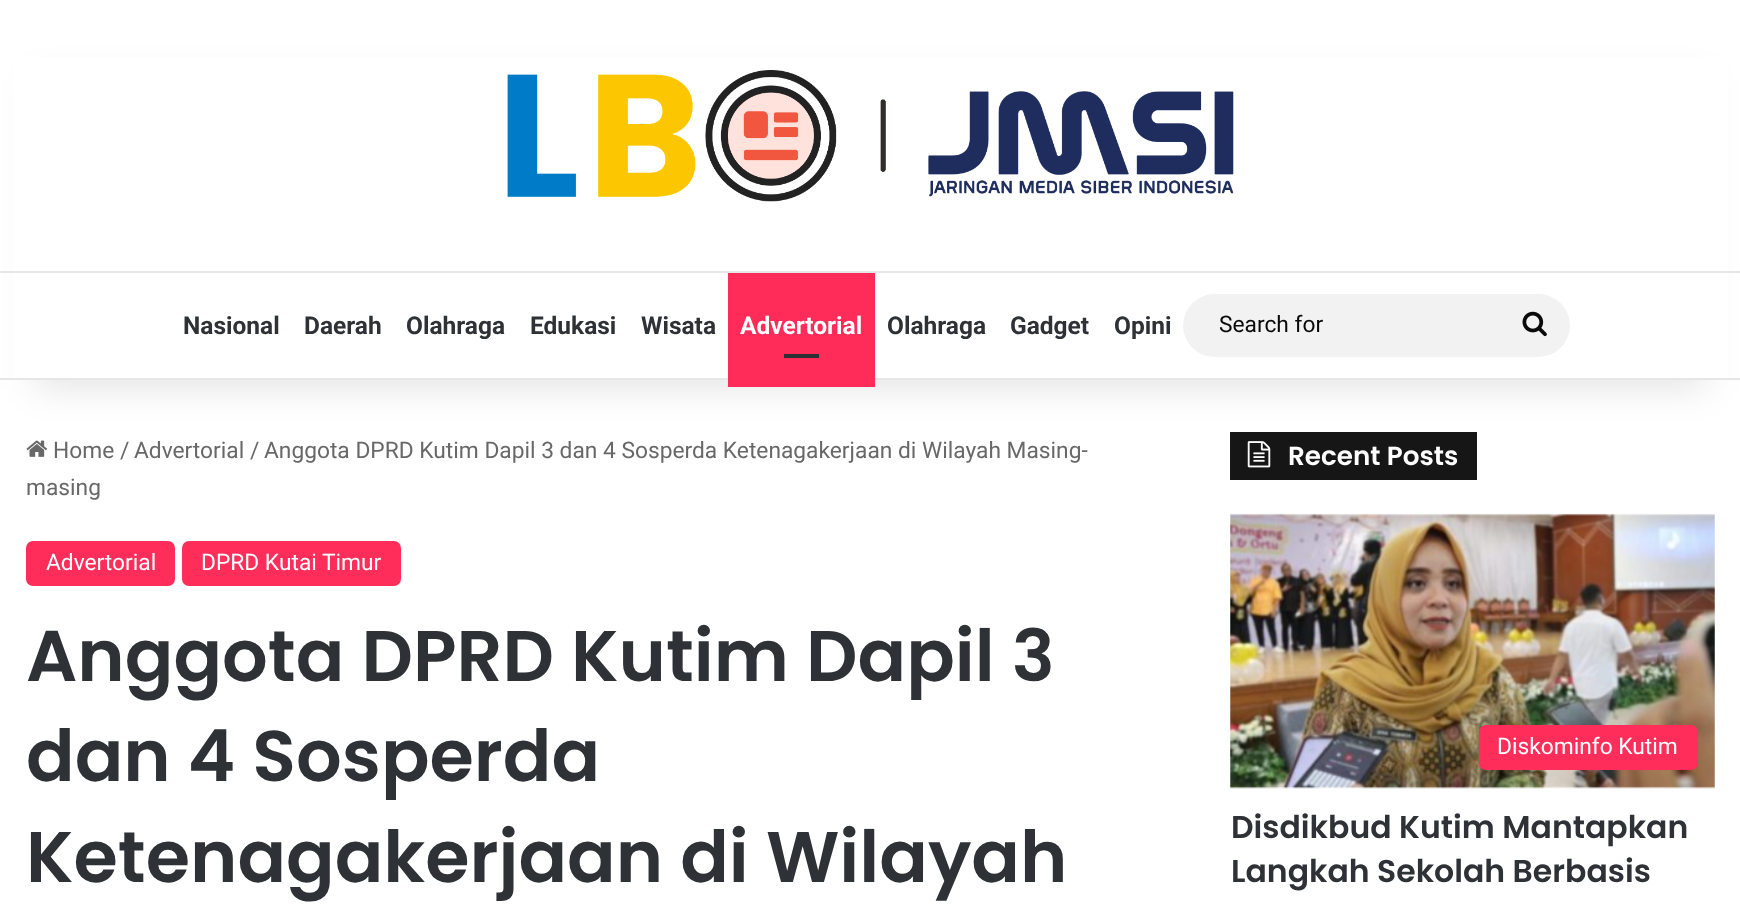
<svg xmlns="http://www.w3.org/2000/svg" width="1740" height="911" viewBox="0 0 1740 911">
  <rect width="100%" height="100%" fill="rgb(255,255,255)"/>
  <image x="26" y="440" width="21" height="17" href="pic3.png"/>
  <rect x="1230" y="432" width="247" height="48" fill="rgb(22,22,22)"/>
  <image x="1247" y="441" width="24" height="27" href="pic4.png"/>
  <rect x="35" y="79" width="1671" height="310" fill="rgba(0,0,0,0.1)" filter="blur(17.5px)"/>
  <rect x="13" y="57" width="1715" height="321" fill="rgb(255,255,255)"/>
  <image x="507" y="70" width="727" height="132" href="pic1.png"/>
  <rect x="0" y="271" width="1740" height="2" fill="rgb(230,230,230)"/>
  <rect x="0" y="378" width="1740" height="2" fill="rgb(230,230,230)"/>
  <g font-family="Roboto" font-size="24.5" font-weight="bold" fill="rgb(46,49,54)">
    <text x="183" y="334">Nasional</text>
    <text x="304" y="334">Daerah</text>
    <text x="406" y="334">Olahraga</text>
    <text x="530" y="334">Edukasi</text>
    <text x="641" y="334">Wisata</text>
  </g>
  <rect x="728" y="273" width="147" height="114" fill="rgb(255,43,88)"/>
  <text x="740" y="334" font-family="Roboto" font-size="24.5" font-weight="bold" fill="rgb(255,255,255)">Advertorial</text>
  <rect x="784" y="354" width="35" height="4" fill="rgb(44,47,52)"/>
  <g font-family="Roboto" font-size="24.5" font-weight="bold" fill="rgb(46,49,54)">
    <text x="887" y="334">Olahraga</text>
    <text x="1010" y="334">Gadget</text>
    <text x="1114" y="334">Opini</text>
  </g>
  <rect x="1183" y="294" width="387" height="63" rx="31.5" fill="rgb(242,242,242)"/>
  <text x="1219" y="332" font-family="Roboto" font-size="22.75" fill="rgb(10,10,10)">Search for</text>
  <image x="1522" y="311" width="25" height="26" href="pic2.png"/>
  <g font-family="Roboto" font-size="22.75" fill="rgb(104,104,104)">
    <text x="53" y="458">Home</text>
    <text x="120" y="458">/</text>
    <text x="134" y="458">Advertorial</text>
    <text x="250" y="458">/</text>
    <text x="264" y="458">Anggota DPRD Kutim Dapil 3 dan 4 Sosperda Ketenagakerjaan di Wilayah Masing-</text>
    <text x="26" y="495">masing</text>
  </g>
  <rect x="26" y="541" width="149" height="45" rx="7" fill="rgb(255,45,90)"/>
  <text x="46" y="570" font-family="Roboto" font-size="22.75" fill="rgb(255,255,255)">Advertorial</text>
  <rect x="182" y="541" width="219" height="45" rx="7" fill="rgb(255,45,90)"/>
  <text x="201" y="570" font-family="Roboto" font-size="22.75" fill="rgb(255,255,255)">DPRD Kutai Timur</text>
  <g font-family="Poppins" font-size="71.75" font-weight="600" fill="rgb(46,49,54)">
    <text>
      <tspan x="26" y="681">Anggota DPRD Kutim Dapil 3</tspan>
      <tspan x="26" y="781">dan 4 Sosperda</tspan>
      <tspan x="26" y="882">Ketenagakerjaan di Wilayah</tspan>
    </text>
  </g>
  <text x="1288" y="465" font-family="Poppins" font-size="26.25" font-weight="600" fill="rgb(255,255,255)">Recent Posts</text>
  <image x="1230" y="513" width="485" height="276" href="pic5.png"/>
  <rect x="1479" y="725" width="219" height="45" rx="7" fill="rgb(255,45,90)"/>
  <text x="1497" y="754" font-family="Roboto" font-size="22.75" fill="rgb(255,255,255)">Diskominfo Kutim</text>
  <g font-family="Poppins" font-size="31.5" font-weight="600" fill="rgb(46,49,54)">
    <text>
      <tspan x="1231" y="838">Disdikbud Kutim Mantapkan</tspan>
      <tspan x="1231" y="882">Langkah Sekolah Berbasis</tspan>
    </text>
  </g>
</svg>
